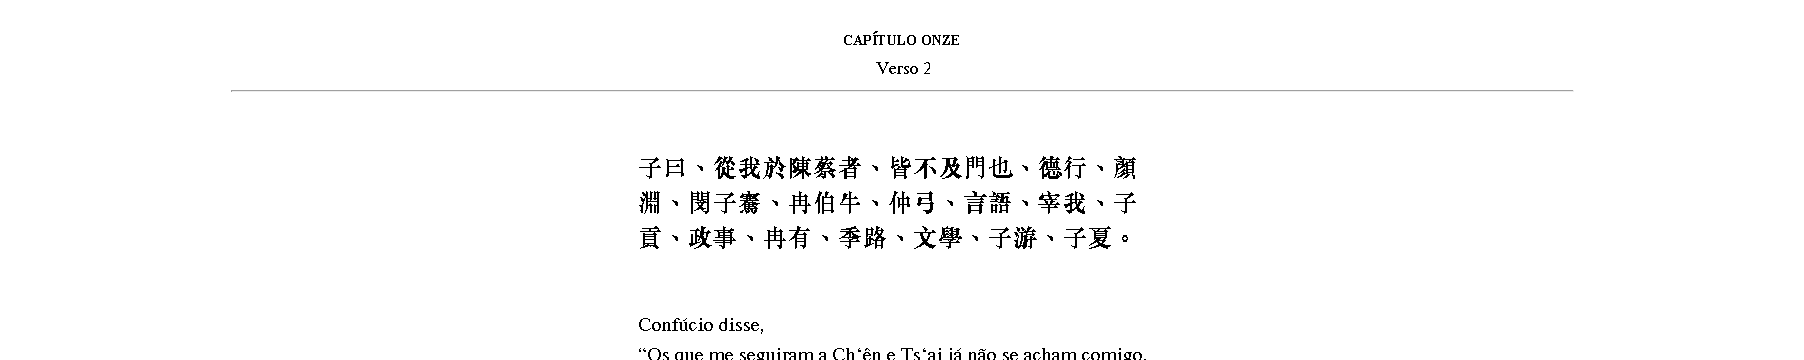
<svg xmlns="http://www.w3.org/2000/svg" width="1804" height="360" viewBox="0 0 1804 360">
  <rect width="100%" height="100%" fill="rgb(255,255,255)"/>
  <image x="844" y="31" width="115" height="14" href="pic1.png"/>
  <image x="876" y="62" width="54" height="12" href="pic2.png"/>
  <rect x="231" y="90" width="1343" height="1" fill="rgb(159,159,159)"/>
  <rect x="1573" y="90" width="1" height="2" fill="rgb(238,238,238)"/>
  <rect x="231" y="91" width="1343" height="1" fill="rgb(238,238,238)"/>
  <rect x="231" y="90" width="1" height="2" fill="rgb(159,159,159)"/>
  <image x="639" y="156" width="497" height="93" href="pic3.png"/>
  <image x="639" y="318" width="507" height="42" href="pic4.png"/>
</svg>
